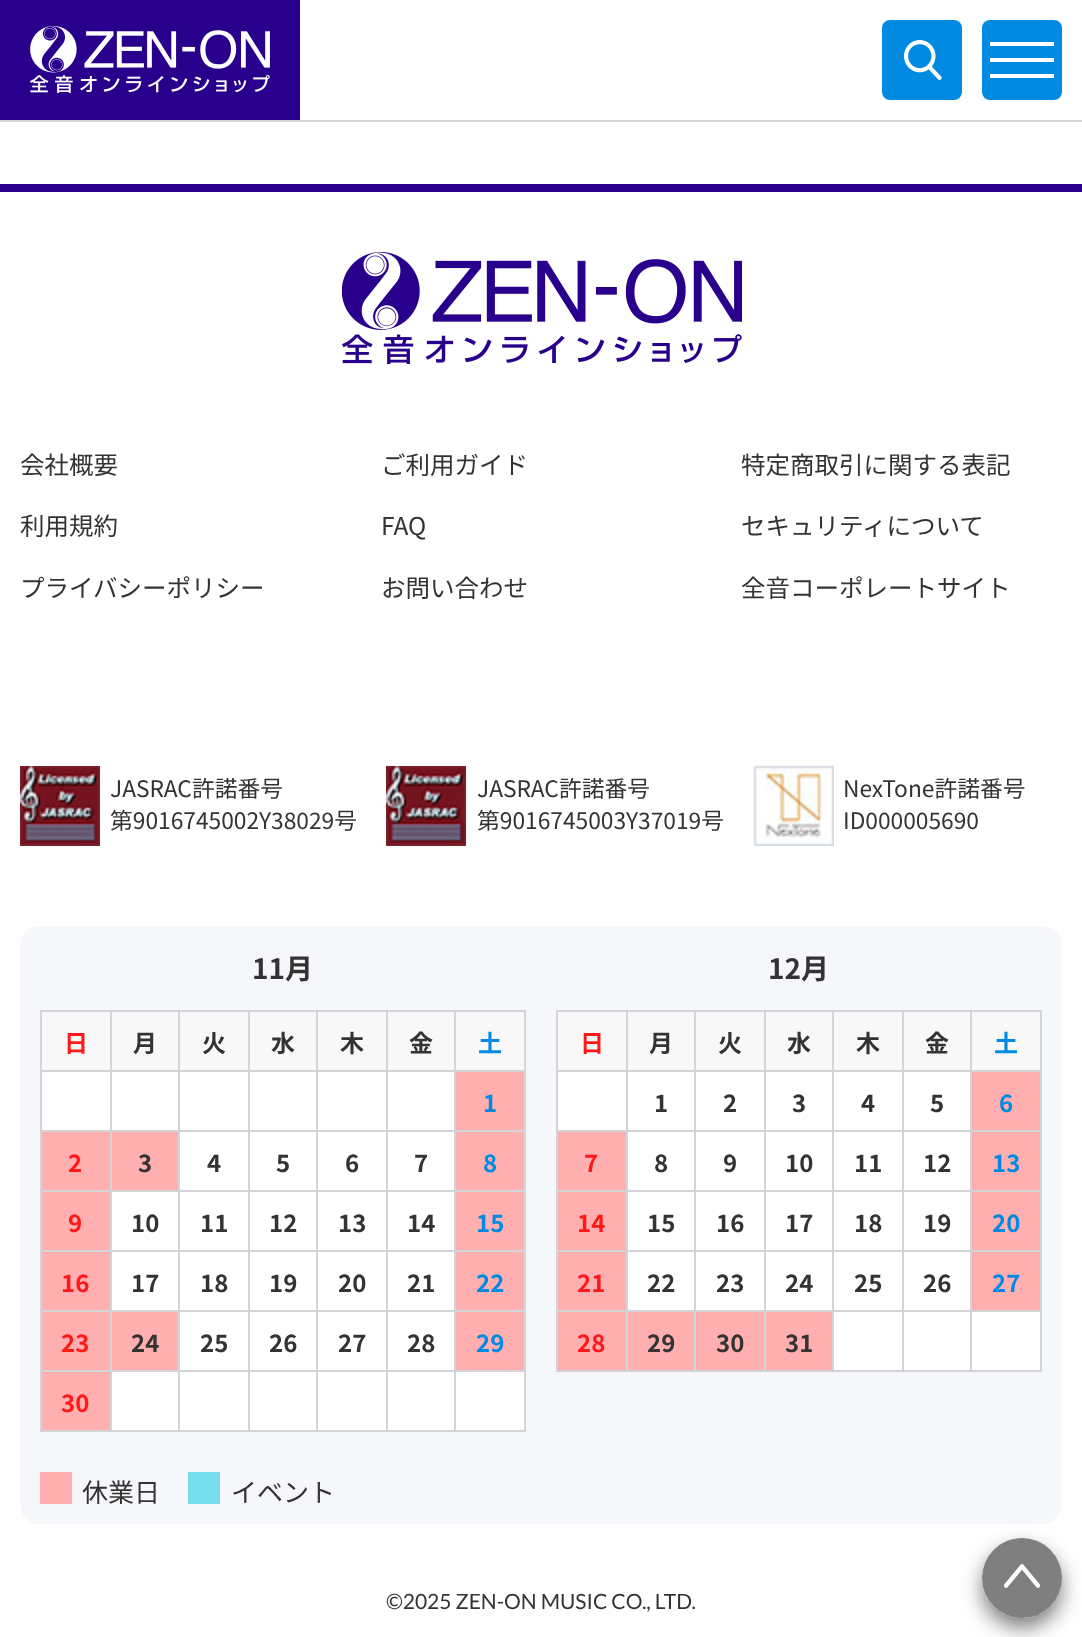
<svg xmlns="http://www.w3.org/2000/svg" width="1082" height="1637" viewBox="0 0 1082 1637">
  <defs>
    <clipPath id="clip1"><path d="M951 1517H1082V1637H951ZM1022 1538C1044 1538 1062 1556 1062 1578C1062 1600 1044 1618 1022 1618C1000 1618 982 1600 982 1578C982 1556 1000 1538 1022 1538Z" clip-rule="evenodd"/></clipPath>
  </defs>
  <rect width="100%" height="100%" fill="rgb(255,255,255)"/>
  <rect x="0" y="120" width="1082" height="2" fill="rgb(210,212,215)"/>
  <rect x="0" y="0" width="300" height="120" fill="rgb(40,0,140)"/>
  <image x="30" y="26" width="240" height="67" href="pic1.png"/>
  <rect x="882" y="20" width="80" height="80" rx="8" fill="rgb(0,138,226)"/>
  <image x="904" y="40" width="38" height="40" href="pic2.png"/>
  <rect x="982" y="20" width="80" height="80" rx="8" fill="rgb(0,138,226)"/>
  <rect x="990" y="42" width="64" height="4" fill="rgb(255,255,255)"/>
  <rect x="990" y="58" width="64" height="4" fill="rgb(255,255,255)"/>
  <rect x="990" y="74" width="64" height="4" fill="rgb(255,255,255)"/>
  <rect x="0" y="184" width="1082" height="8" fill="rgb(40,0,140)"/>
  <image x="342" y="252" width="400" height="112" href="pic3.png"/>
  <g font-family="Noto Sans JP" font-size="24.5" fill="rgb(51,51,51)">
    <text x="20" y="474">会社概要</text>
    <text x="20" y="535">利用規約</text>
    <text x="20" y="597">プライバシーポリシー</text>
    <text x="381" y="474">ご利用ガイド</text>
    <text x="381" y="535">FAQ</text>
    <text x="381" y="597">お問い合わせ</text>
    <text x="741" y="474">特定商取引に関する表記</text>
    <text x="741" y="535">セキュリティについて</text>
    <text x="741" y="597">全音コーポレートサイト</text>
  </g>
  <image x="20" y="766" width="80" height="80" href="pic4.png"/>
  <g font-family="Noto Sans JP" font-size="22.75" fill="rgb(51,51,51)">
    <text>
      <tspan x="110" y="797">JASRAC許諾番号</tspan>
      <tspan x="110" y="829">第9016745002Y38029号</tspan>
    </text>
  </g>
  <image x="386" y="766" width="80" height="80" href="pic4.png"/>
  <g font-family="Noto Sans JP" font-size="22.75" fill="rgb(51,51,51)">
    <text>
      <tspan x="477" y="797">JASRAC許諾番号</tspan>
      <tspan x="477" y="829">第9016745003Y37019号</tspan>
    </text>
  </g>
  <image x="753" y="765" width="81" height="81" href="pic5.png"/>
  <g font-family="Noto Sans JP" font-size="22.75" fill="rgb(51,51,51)">
    <text>
      <tspan x="843" y="797">NexTone許諾番号</tspan>
      <tspan x="843" y="829">ID000005690</tspan>
    </text>
  </g>
  <rect x="20" y="926" width="1042" height="598" rx="20" fill="rgb(245,247,250)"/>
  <text x="252" y="979" font-family="Noto Sans JP" font-size="28" font-weight="bold" fill="rgb(51,51,51)">11月</text>
  <rect x="42" y="1072" width="482" height="358" fill="rgb(255,255,255)"/>
  <rect x="42" y="1012" width="68" height="58" fill="rgb(248,248,248)"/>
  <rect x="454" y="1010" width="72" height="2" fill="rgb(210,212,215)"/>
  <rect x="454" y="1070" width="72" height="2" fill="rgb(210,212,215)"/>
  <rect x="454" y="1130" width="72" height="2" fill="rgb(210,212,215)"/>
  <rect x="454" y="1190" width="72" height="2" fill="rgb(210,212,215)"/>
  <rect x="454" y="1250" width="72" height="2" fill="rgb(210,212,215)"/>
  <rect x="454" y="1310" width="72" height="2" fill="rgb(210,212,215)"/>
  <rect x="454" y="1370" width="72" height="2" fill="rgb(210,212,215)"/>
  <rect x="524" y="1370" width="2" height="62" fill="rgb(210,212,215)"/>
  <rect x="454" y="1430" width="72" height="2" fill="rgb(210,212,215)"/>
  <rect x="454" y="1370" width="2" height="62" fill="rgb(210,212,215)"/>
  <rect x="386" y="1370" width="70" height="2" fill="rgb(210,212,215)"/>
  <rect x="454" y="1310" width="2" height="62" fill="rgb(210,212,215)"/>
  <rect x="386" y="1310" width="70" height="2" fill="rgb(210,212,215)"/>
  <rect x="454" y="1250" width="2" height="62" fill="rgb(210,212,215)"/>
  <rect x="386" y="1250" width="70" height="2" fill="rgb(210,212,215)"/>
  <rect x="454" y="1190" width="2" height="62" fill="rgb(210,212,215)"/>
  <rect x="386" y="1190" width="70" height="2" fill="rgb(210,212,215)"/>
  <rect x="454" y="1130" width="2" height="62" fill="rgb(210,212,215)"/>
  <rect x="386" y="1130" width="70" height="2" fill="rgb(210,212,215)"/>
  <rect x="454" y="1070" width="2" height="62" fill="rgb(210,212,215)"/>
  <rect x="386" y="1070" width="70" height="2" fill="rgb(210,212,215)"/>
  <rect x="454" y="1010" width="2" height="62" fill="rgb(210,212,215)"/>
  <rect x="386" y="1010" width="70" height="2" fill="rgb(210,212,215)"/>
  <rect x="386" y="1430" width="70" height="2" fill="rgb(210,212,215)"/>
  <rect x="386" y="1370" width="2" height="62" fill="rgb(210,212,215)"/>
  <rect x="316" y="1370" width="72" height="2" fill="rgb(210,212,215)"/>
  <rect x="386" y="1310" width="2" height="62" fill="rgb(210,212,215)"/>
  <rect x="316" y="1310" width="72" height="2" fill="rgb(210,212,215)"/>
  <rect x="386" y="1250" width="2" height="62" fill="rgb(210,212,215)"/>
  <rect x="316" y="1250" width="72" height="2" fill="rgb(210,212,215)"/>
  <rect x="386" y="1190" width="2" height="62" fill="rgb(210,212,215)"/>
  <rect x="316" y="1190" width="72" height="2" fill="rgb(210,212,215)"/>
  <rect x="386" y="1130" width="2" height="62" fill="rgb(210,212,215)"/>
  <rect x="316" y="1130" width="72" height="2" fill="rgb(210,212,215)"/>
  <rect x="386" y="1070" width="2" height="62" fill="rgb(210,212,215)"/>
  <rect x="316" y="1070" width="72" height="2" fill="rgb(210,212,215)"/>
  <rect x="386" y="1010" width="2" height="62" fill="rgb(210,212,215)"/>
  <rect x="316" y="1010" width="72" height="2" fill="rgb(210,212,215)"/>
  <rect x="316" y="1430" width="72" height="2" fill="rgb(210,212,215)"/>
  <rect x="316" y="1370" width="2" height="62" fill="rgb(210,212,215)"/>
  <rect x="248" y="1370" width="70" height="2" fill="rgb(210,212,215)"/>
  <rect x="316" y="1310" width="2" height="62" fill="rgb(210,212,215)"/>
  <rect x="248" y="1310" width="70" height="2" fill="rgb(210,212,215)"/>
  <rect x="316" y="1250" width="2" height="62" fill="rgb(210,212,215)"/>
  <rect x="248" y="1250" width="70" height="2" fill="rgb(210,212,215)"/>
  <rect x="316" y="1190" width="2" height="62" fill="rgb(210,212,215)"/>
  <rect x="248" y="1190" width="70" height="2" fill="rgb(210,212,215)"/>
  <rect x="316" y="1130" width="2" height="62" fill="rgb(210,212,215)"/>
  <rect x="248" y="1130" width="70" height="2" fill="rgb(210,212,215)"/>
  <rect x="316" y="1070" width="2" height="62" fill="rgb(210,212,215)"/>
  <rect x="248" y="1070" width="70" height="2" fill="rgb(210,212,215)"/>
  <rect x="316" y="1010" width="2" height="62" fill="rgb(210,212,215)"/>
  <rect x="248" y="1010" width="70" height="2" fill="rgb(210,212,215)"/>
  <rect x="248" y="1430" width="70" height="2" fill="rgb(210,212,215)"/>
  <rect x="248" y="1370" width="2" height="62" fill="rgb(210,212,215)"/>
  <rect x="178" y="1370" width="72" height="2" fill="rgb(210,212,215)"/>
  <rect x="248" y="1310" width="2" height="62" fill="rgb(210,212,215)"/>
  <rect x="178" y="1310" width="72" height="2" fill="rgb(210,212,215)"/>
  <rect x="248" y="1250" width="2" height="62" fill="rgb(210,212,215)"/>
  <rect x="178" y="1250" width="72" height="2" fill="rgb(210,212,215)"/>
  <rect x="248" y="1190" width="2" height="62" fill="rgb(210,212,215)"/>
  <rect x="178" y="1190" width="72" height="2" fill="rgb(210,212,215)"/>
  <rect x="248" y="1130" width="2" height="62" fill="rgb(210,212,215)"/>
  <rect x="178" y="1130" width="72" height="2" fill="rgb(210,212,215)"/>
  <rect x="248" y="1070" width="2" height="62" fill="rgb(210,212,215)"/>
  <rect x="178" y="1070" width="72" height="2" fill="rgb(210,212,215)"/>
  <rect x="248" y="1010" width="2" height="62" fill="rgb(210,212,215)"/>
  <rect x="178" y="1010" width="72" height="2" fill="rgb(210,212,215)"/>
  <rect x="178" y="1430" width="72" height="2" fill="rgb(210,212,215)"/>
  <rect x="178" y="1370" width="2" height="62" fill="rgb(210,212,215)"/>
  <rect x="110" y="1370" width="70" height="2" fill="rgb(210,212,215)"/>
  <rect x="178" y="1310" width="2" height="62" fill="rgb(210,212,215)"/>
  <rect x="110" y="1310" width="70" height="2" fill="rgb(210,212,215)"/>
  <rect x="178" y="1250" width="2" height="62" fill="rgb(210,212,215)"/>
  <rect x="110" y="1250" width="70" height="2" fill="rgb(210,212,215)"/>
  <rect x="178" y="1190" width="2" height="62" fill="rgb(210,212,215)"/>
  <rect x="110" y="1190" width="70" height="2" fill="rgb(210,212,215)"/>
  <rect x="178" y="1130" width="2" height="62" fill="rgb(210,212,215)"/>
  <rect x="110" y="1130" width="70" height="2" fill="rgb(210,212,215)"/>
  <rect x="178" y="1070" width="2" height="62" fill="rgb(210,212,215)"/>
  <rect x="110" y="1070" width="70" height="2" fill="rgb(210,212,215)"/>
  <rect x="178" y="1010" width="2" height="62" fill="rgb(210,212,215)"/>
  <rect x="110" y="1010" width="70" height="2" fill="rgb(210,212,215)"/>
  <rect x="110" y="1430" width="70" height="2" fill="rgb(210,212,215)"/>
  <rect x="110" y="1370" width="2" height="62" fill="rgb(210,212,215)"/>
  <rect x="40" y="1370" width="72" height="2" fill="rgb(210,212,215)"/>
  <rect x="110" y="1310" width="2" height="62" fill="rgb(210,212,215)"/>
  <rect x="40" y="1310" width="72" height="2" fill="rgb(210,212,215)"/>
  <rect x="110" y="1250" width="2" height="62" fill="rgb(210,212,215)"/>
  <rect x="40" y="1250" width="72" height="2" fill="rgb(210,212,215)"/>
  <rect x="110" y="1190" width="2" height="62" fill="rgb(210,212,215)"/>
  <rect x="40" y="1190" width="72" height="2" fill="rgb(210,212,215)"/>
  <rect x="110" y="1130" width="2" height="62" fill="rgb(210,212,215)"/>
  <rect x="40" y="1130" width="72" height="2" fill="rgb(210,212,215)"/>
  <rect x="110" y="1070" width="2" height="62" fill="rgb(210,212,215)"/>
  <rect x="40" y="1070" width="72" height="2" fill="rgb(210,212,215)"/>
  <rect x="110" y="1010" width="2" height="62" fill="rgb(210,212,215)"/>
  <rect x="40" y="1010" width="72" height="2" fill="rgb(210,212,215)"/>
  <rect x="40" y="1430" width="72" height="2" fill="rgb(210,212,215)"/>
  <rect x="40" y="1370" width="2" height="62" fill="rgb(210,212,215)"/>
  <rect x="40" y="1310" width="2" height="62" fill="rgb(210,212,215)"/>
  <rect x="40" y="1250" width="2" height="62" fill="rgb(210,212,215)"/>
  <rect x="40" y="1190" width="2" height="62" fill="rgb(210,212,215)"/>
  <rect x="40" y="1130" width="2" height="62" fill="rgb(210,212,215)"/>
  <rect x="40" y="1070" width="2" height="62" fill="rgb(210,212,215)"/>
  <rect x="40" y="1010" width="2" height="62" fill="rgb(210,212,215)"/>
  <text x="64" y="1052" font-family="Noto Sans JP" font-size="24" font-weight="bold" fill="rgb(255,24,24)">日</text>
  <rect x="112" y="1012" width="66" height="58" fill="rgb(248,248,248)"/>
  <text x="133" y="1052" font-family="Noto Sans JP" font-size="24" font-weight="bold" fill="rgb(51,51,51)">月</text>
  <rect x="180" y="1012" width="68" height="58" fill="rgb(248,248,248)"/>
  <text x="202" y="1052" font-family="Noto Sans JP" font-size="24" font-weight="bold" fill="rgb(51,51,51)">火</text>
  <rect x="250" y="1012" width="66" height="58" fill="rgb(248,248,248)"/>
  <text x="271" y="1052" font-family="Noto Sans JP" font-size="24" font-weight="bold" fill="rgb(51,51,51)">水</text>
  <rect x="318" y="1012" width="68" height="58" fill="rgb(248,248,248)"/>
  <text x="340" y="1052" font-family="Noto Sans JP" font-size="24" font-weight="bold" fill="rgb(51,51,51)">木</text>
  <rect x="388" y="1012" width="66" height="58" fill="rgb(248,248,248)"/>
  <text x="409" y="1052" font-family="Noto Sans JP" font-size="24" font-weight="bold" fill="rgb(51,51,51)">金</text>
  <rect x="456" y="1012" width="68" height="58" fill="rgb(248,248,248)"/>
  <rect x="524" y="1310" width="2" height="62" fill="rgb(210,212,215)"/>
  <rect x="524" y="1250" width="2" height="62" fill="rgb(210,212,215)"/>
  <rect x="524" y="1190" width="2" height="62" fill="rgb(210,212,215)"/>
  <rect x="524" y="1130" width="2" height="62" fill="rgb(210,212,215)"/>
  <rect x="524" y="1070" width="2" height="62" fill="rgb(210,212,215)"/>
  <rect x="524" y="1010" width="2" height="62" fill="rgb(210,212,215)"/>
  <text x="478" y="1052" font-family="Noto Sans JP" font-size="24" font-weight="bold" fill="rgb(0,138,226)">土</text>
  <rect x="456" y="1072" width="68" height="58" fill="rgb(255,175,175)"/>
  <text x="483" y="1112" font-family="Noto Sans JP" font-size="24" font-weight="bold" fill="rgb(0,138,226)">1</text>
  <rect x="42" y="1132" width="68" height="58" fill="rgb(255,175,175)"/>
  <text x="68" y="1172" font-family="Noto Sans JP" font-size="24" font-weight="bold" fill="rgb(255,24,24)">2</text>
  <rect x="112" y="1132" width="66" height="58" fill="rgb(255,175,175)"/>
  <g font-family="Noto Sans JP" font-size="24" font-weight="bold" fill="rgb(51,51,51)">
    <text x="138" y="1172">3</text>
    <text x="207" y="1172">4</text>
    <text x="276" y="1172">5</text>
    <text x="345" y="1172">6</text>
    <text x="414" y="1172">7</text>
  </g>
  <rect x="456" y="1132" width="68" height="58" fill="rgb(255,175,175)"/>
  <text x="483" y="1172" font-family="Noto Sans JP" font-size="24" font-weight="bold" fill="rgb(0,138,226)">8</text>
  <rect x="42" y="1192" width="68" height="58" fill="rgb(255,175,175)"/>
  <text x="68" y="1232" font-family="Noto Sans JP" font-size="24" font-weight="bold" fill="rgb(255,24,24)">9</text>
  <g font-family="Noto Sans JP" font-size="24" font-weight="bold" fill="rgb(51,51,51)">
    <text x="131" y="1232">10</text>
    <text x="200" y="1232">11</text>
    <text x="269" y="1232">12</text>
    <text x="338" y="1232">13</text>
    <text x="407" y="1232">14</text>
  </g>
  <rect x="456" y="1192" width="68" height="58" fill="rgb(255,175,175)"/>
  <text x="476" y="1232" font-family="Noto Sans JP" font-size="24" font-weight="bold" fill="rgb(0,138,226)">15</text>
  <rect x="42" y="1252" width="68" height="58" fill="rgb(255,175,175)"/>
  <text x="61" y="1292" font-family="Noto Sans JP" font-size="24" font-weight="bold" fill="rgb(255,24,24)">16</text>
  <g font-family="Noto Sans JP" font-size="24" font-weight="bold" fill="rgb(51,51,51)">
    <text x="131" y="1292">17</text>
    <text x="200" y="1292">18</text>
    <text x="269" y="1292">19</text>
    <text x="338" y="1292">20</text>
    <text x="407" y="1292">21</text>
  </g>
  <rect x="456" y="1252" width="68" height="58" fill="rgb(255,175,175)"/>
  <text x="476" y="1292" font-family="Noto Sans JP" font-size="24" font-weight="bold" fill="rgb(0,138,226)">22</text>
  <rect x="42" y="1312" width="68" height="58" fill="rgb(255,175,175)"/>
  <text x="61" y="1352" font-family="Noto Sans JP" font-size="24" font-weight="bold" fill="rgb(255,24,24)">23</text>
  <rect x="112" y="1312" width="66" height="58" fill="rgb(255,175,175)"/>
  <g font-family="Noto Sans JP" font-size="24" font-weight="bold" fill="rgb(51,51,51)">
    <text x="131" y="1352">24</text>
    <text x="200" y="1352">25</text>
    <text x="269" y="1352">26</text>
    <text x="338" y="1352">27</text>
    <text x="407" y="1352">28</text>
  </g>
  <rect x="456" y="1312" width="68" height="58" fill="rgb(255,175,175)"/>
  <text x="476" y="1352" font-family="Noto Sans JP" font-size="24" font-weight="bold" fill="rgb(0,138,226)">29</text>
  <rect x="42" y="1372" width="68" height="58" fill="rgb(255,175,175)"/>
  <text x="61" y="1412" font-family="Noto Sans JP" font-size="24" font-weight="bold" fill="rgb(255,24,24)">30</text>
  <text x="768" y="979" font-family="Noto Sans JP" font-size="28" font-weight="bold" fill="rgb(51,51,51)">12月</text>
  <rect x="558" y="1072" width="482" height="298" fill="rgb(255,255,255)"/>
  <rect x="558" y="1012" width="68" height="58" fill="rgb(248,248,248)"/>
  <rect x="970" y="1010" width="72" height="2" fill="rgb(210,212,215)"/>
  <rect x="970" y="1070" width="72" height="2" fill="rgb(210,212,215)"/>
  <rect x="970" y="1130" width="72" height="2" fill="rgb(210,212,215)"/>
  <rect x="970" y="1190" width="72" height="2" fill="rgb(210,212,215)"/>
  <rect x="970" y="1250" width="72" height="2" fill="rgb(210,212,215)"/>
  <rect x="970" y="1310" width="72" height="2" fill="rgb(210,212,215)"/>
  <rect x="1040" y="1310" width="2" height="62" fill="rgb(210,212,215)"/>
  <rect x="970" y="1370" width="72" height="2" fill="rgb(210,212,215)"/>
  <rect x="970" y="1310" width="2" height="62" fill="rgb(210,212,215)"/>
  <rect x="902" y="1310" width="70" height="2" fill="rgb(210,212,215)"/>
  <rect x="970" y="1250" width="2" height="62" fill="rgb(210,212,215)"/>
  <rect x="902" y="1250" width="70" height="2" fill="rgb(210,212,215)"/>
  <rect x="970" y="1190" width="2" height="62" fill="rgb(210,212,215)"/>
  <rect x="902" y="1190" width="70" height="2" fill="rgb(210,212,215)"/>
  <rect x="970" y="1130" width="2" height="62" fill="rgb(210,212,215)"/>
  <rect x="902" y="1130" width="70" height="2" fill="rgb(210,212,215)"/>
  <rect x="970" y="1070" width="2" height="62" fill="rgb(210,212,215)"/>
  <rect x="902" y="1070" width="70" height="2" fill="rgb(210,212,215)"/>
  <rect x="970" y="1010" width="2" height="62" fill="rgb(210,212,215)"/>
  <rect x="902" y="1010" width="70" height="2" fill="rgb(210,212,215)"/>
  <rect x="902" y="1370" width="70" height="2" fill="rgb(210,212,215)"/>
  <rect x="902" y="1310" width="2" height="62" fill="rgb(210,212,215)"/>
  <rect x="832" y="1310" width="72" height="2" fill="rgb(210,212,215)"/>
  <rect x="902" y="1250" width="2" height="62" fill="rgb(210,212,215)"/>
  <rect x="832" y="1250" width="72" height="2" fill="rgb(210,212,215)"/>
  <rect x="902" y="1190" width="2" height="62" fill="rgb(210,212,215)"/>
  <rect x="832" y="1190" width="72" height="2" fill="rgb(210,212,215)"/>
  <rect x="902" y="1130" width="2" height="62" fill="rgb(210,212,215)"/>
  <rect x="832" y="1130" width="72" height="2" fill="rgb(210,212,215)"/>
  <rect x="902" y="1070" width="2" height="62" fill="rgb(210,212,215)"/>
  <rect x="832" y="1070" width="72" height="2" fill="rgb(210,212,215)"/>
  <rect x="902" y="1010" width="2" height="62" fill="rgb(210,212,215)"/>
  <rect x="832" y="1010" width="72" height="2" fill="rgb(210,212,215)"/>
  <rect x="832" y="1370" width="72" height="2" fill="rgb(210,212,215)"/>
  <rect x="832" y="1310" width="2" height="62" fill="rgb(210,212,215)"/>
  <rect x="764" y="1310" width="70" height="2" fill="rgb(210,212,215)"/>
  <rect x="832" y="1250" width="2" height="62" fill="rgb(210,212,215)"/>
  <rect x="764" y="1250" width="70" height="2" fill="rgb(210,212,215)"/>
  <rect x="832" y="1190" width="2" height="62" fill="rgb(210,212,215)"/>
  <rect x="764" y="1190" width="70" height="2" fill="rgb(210,212,215)"/>
  <rect x="832" y="1130" width="2" height="62" fill="rgb(210,212,215)"/>
  <rect x="764" y="1130" width="70" height="2" fill="rgb(210,212,215)"/>
  <rect x="832" y="1070" width="2" height="62" fill="rgb(210,212,215)"/>
  <rect x="764" y="1070" width="70" height="2" fill="rgb(210,212,215)"/>
  <rect x="832" y="1010" width="2" height="62" fill="rgb(210,212,215)"/>
  <rect x="764" y="1010" width="70" height="2" fill="rgb(210,212,215)"/>
  <rect x="764" y="1370" width="70" height="2" fill="rgb(210,212,215)"/>
  <rect x="764" y="1310" width="2" height="62" fill="rgb(210,212,215)"/>
  <rect x="694" y="1310" width="72" height="2" fill="rgb(210,212,215)"/>
  <rect x="764" y="1250" width="2" height="62" fill="rgb(210,212,215)"/>
  <rect x="694" y="1250" width="72" height="2" fill="rgb(210,212,215)"/>
  <rect x="764" y="1190" width="2" height="62" fill="rgb(210,212,215)"/>
  <rect x="694" y="1190" width="72" height="2" fill="rgb(210,212,215)"/>
  <rect x="764" y="1130" width="2" height="62" fill="rgb(210,212,215)"/>
  <rect x="694" y="1130" width="72" height="2" fill="rgb(210,212,215)"/>
  <rect x="764" y="1070" width="2" height="62" fill="rgb(210,212,215)"/>
  <rect x="694" y="1070" width="72" height="2" fill="rgb(210,212,215)"/>
  <rect x="764" y="1010" width="2" height="62" fill="rgb(210,212,215)"/>
  <rect x="694" y="1010" width="72" height="2" fill="rgb(210,212,215)"/>
  <rect x="694" y="1370" width="72" height="2" fill="rgb(210,212,215)"/>
  <rect x="694" y="1310" width="2" height="62" fill="rgb(210,212,215)"/>
  <rect x="626" y="1310" width="70" height="2" fill="rgb(210,212,215)"/>
  <rect x="694" y="1250" width="2" height="62" fill="rgb(210,212,215)"/>
  <rect x="626" y="1250" width="70" height="2" fill="rgb(210,212,215)"/>
  <rect x="694" y="1190" width="2" height="62" fill="rgb(210,212,215)"/>
  <rect x="626" y="1190" width="70" height="2" fill="rgb(210,212,215)"/>
  <rect x="694" y="1130" width="2" height="62" fill="rgb(210,212,215)"/>
  <rect x="626" y="1130" width="70" height="2" fill="rgb(210,212,215)"/>
  <rect x="694" y="1070" width="2" height="62" fill="rgb(210,212,215)"/>
  <rect x="626" y="1070" width="70" height="2" fill="rgb(210,212,215)"/>
  <rect x="694" y="1010" width="2" height="62" fill="rgb(210,212,215)"/>
  <rect x="626" y="1010" width="70" height="2" fill="rgb(210,212,215)"/>
  <rect x="626" y="1370" width="70" height="2" fill="rgb(210,212,215)"/>
  <rect x="626" y="1310" width="2" height="62" fill="rgb(210,212,215)"/>
  <rect x="556" y="1310" width="72" height="2" fill="rgb(210,212,215)"/>
  <rect x="626" y="1250" width="2" height="62" fill="rgb(210,212,215)"/>
  <rect x="556" y="1250" width="72" height="2" fill="rgb(210,212,215)"/>
  <rect x="626" y="1190" width="2" height="62" fill="rgb(210,212,215)"/>
  <rect x="556" y="1190" width="72" height="2" fill="rgb(210,212,215)"/>
  <rect x="626" y="1130" width="2" height="62" fill="rgb(210,212,215)"/>
  <rect x="556" y="1130" width="72" height="2" fill="rgb(210,212,215)"/>
  <rect x="626" y="1070" width="2" height="62" fill="rgb(210,212,215)"/>
  <rect x="556" y="1070" width="72" height="2" fill="rgb(210,212,215)"/>
  <rect x="626" y="1010" width="2" height="62" fill="rgb(210,212,215)"/>
  <rect x="556" y="1010" width="72" height="2" fill="rgb(210,212,215)"/>
  <rect x="556" y="1370" width="72" height="2" fill="rgb(210,212,215)"/>
  <rect x="556" y="1310" width="2" height="62" fill="rgb(210,212,215)"/>
  <rect x="556" y="1250" width="2" height="62" fill="rgb(210,212,215)"/>
  <rect x="556" y="1190" width="2" height="62" fill="rgb(210,212,215)"/>
  <rect x="556" y="1130" width="2" height="62" fill="rgb(210,212,215)"/>
  <rect x="556" y="1070" width="2" height="62" fill="rgb(210,212,215)"/>
  <rect x="556" y="1010" width="2" height="62" fill="rgb(210,212,215)"/>
  <text x="580" y="1052" font-family="Noto Sans JP" font-size="24" font-weight="bold" fill="rgb(255,24,24)">日</text>
  <rect x="628" y="1012" width="66" height="58" fill="rgb(248,248,248)"/>
  <text x="649" y="1052" font-family="Noto Sans JP" font-size="24" font-weight="bold" fill="rgb(51,51,51)">月</text>
  <rect x="696" y="1012" width="68" height="58" fill="rgb(248,248,248)"/>
  <text x="718" y="1052" font-family="Noto Sans JP" font-size="24" font-weight="bold" fill="rgb(51,51,51)">火</text>
  <rect x="766" y="1012" width="66" height="58" fill="rgb(248,248,248)"/>
  <text x="787" y="1052" font-family="Noto Sans JP" font-size="24" font-weight="bold" fill="rgb(51,51,51)">水</text>
  <rect x="834" y="1012" width="68" height="58" fill="rgb(248,248,248)"/>
  <text x="856" y="1052" font-family="Noto Sans JP" font-size="24" font-weight="bold" fill="rgb(51,51,51)">木</text>
  <rect x="904" y="1012" width="66" height="58" fill="rgb(248,248,248)"/>
  <text x="925" y="1052" font-family="Noto Sans JP" font-size="24" font-weight="bold" fill="rgb(51,51,51)">金</text>
  <rect x="972" y="1012" width="68" height="58" fill="rgb(248,248,248)"/>
  <rect x="1040" y="1250" width="2" height="62" fill="rgb(210,212,215)"/>
  <rect x="1040" y="1190" width="2" height="62" fill="rgb(210,212,215)"/>
  <rect x="1040" y="1130" width="2" height="62" fill="rgb(210,212,215)"/>
  <rect x="1040" y="1070" width="2" height="62" fill="rgb(210,212,215)"/>
  <rect x="1040" y="1010" width="2" height="62" fill="rgb(210,212,215)"/>
  <text x="994" y="1052" font-family="Noto Sans JP" font-size="24" font-weight="bold" fill="rgb(0,138,226)">土</text>
  <g font-family="Noto Sans JP" font-size="24" font-weight="bold" fill="rgb(51,51,51)">
    <text x="654" y="1112">1</text>
    <text x="723" y="1112">2</text>
    <text x="792" y="1112">3</text>
    <text x="861" y="1112">4</text>
    <text x="930" y="1112">5</text>
  </g>
  <rect x="972" y="1072" width="68" height="58" fill="rgb(255,175,175)"/>
  <text x="999" y="1112" font-family="Noto Sans JP" font-size="24" font-weight="bold" fill="rgb(0,138,226)">6</text>
  <rect x="558" y="1132" width="68" height="58" fill="rgb(255,175,175)"/>
  <text x="584" y="1172" font-family="Noto Sans JP" font-size="24" font-weight="bold" fill="rgb(255,24,24)">7</text>
  <g font-family="Noto Sans JP" font-size="24" font-weight="bold" fill="rgb(51,51,51)">
    <text x="654" y="1172">8</text>
    <text x="723" y="1172">9</text>
    <text x="785" y="1172">10</text>
    <text x="854" y="1172">11</text>
    <text x="923" y="1172">12</text>
  </g>
  <rect x="972" y="1132" width="68" height="58" fill="rgb(255,175,175)"/>
  <text x="992" y="1172" font-family="Noto Sans JP" font-size="24" font-weight="bold" fill="rgb(0,138,226)">13</text>
  <rect x="558" y="1192" width="68" height="58" fill="rgb(255,175,175)"/>
  <text x="577" y="1232" font-family="Noto Sans JP" font-size="24" font-weight="bold" fill="rgb(255,24,24)">14</text>
  <g font-family="Noto Sans JP" font-size="24" font-weight="bold" fill="rgb(51,51,51)">
    <text x="647" y="1232">15</text>
    <text x="716" y="1232">16</text>
    <text x="785" y="1232">17</text>
    <text x="854" y="1232">18</text>
    <text x="923" y="1232">19</text>
  </g>
  <rect x="972" y="1192" width="68" height="58" fill="rgb(255,175,175)"/>
  <text x="992" y="1232" font-family="Noto Sans JP" font-size="24" font-weight="bold" fill="rgb(0,138,226)">20</text>
  <rect x="558" y="1252" width="68" height="58" fill="rgb(255,175,175)"/>
  <text x="577" y="1292" font-family="Noto Sans JP" font-size="24" font-weight="bold" fill="rgb(255,24,24)">21</text>
  <g font-family="Noto Sans JP" font-size="24" font-weight="bold" fill="rgb(51,51,51)">
    <text x="647" y="1292">22</text>
    <text x="716" y="1292">23</text>
    <text x="785" y="1292">24</text>
    <text x="854" y="1292">25</text>
    <text x="923" y="1292">26</text>
  </g>
  <rect x="972" y="1252" width="68" height="58" fill="rgb(255,175,175)"/>
  <text x="992" y="1292" font-family="Noto Sans JP" font-size="24" font-weight="bold" fill="rgb(0,138,226)">27</text>
  <rect x="558" y="1312" width="68" height="58" fill="rgb(255,175,175)"/>
  <text x="577" y="1352" font-family="Noto Sans JP" font-size="24" font-weight="bold" fill="rgb(255,24,24)">28</text>
  <rect x="628" y="1312" width="66" height="58" fill="rgb(255,175,175)"/>
  <text x="647" y="1352" font-family="Noto Sans JP" font-size="24" font-weight="bold" fill="rgb(51,51,51)">29</text>
  <rect x="696" y="1312" width="68" height="58" fill="rgb(255,175,175)"/>
  <text x="716" y="1352" font-family="Noto Sans JP" font-size="24" font-weight="bold" fill="rgb(51,51,51)">30</text>
  <rect x="766" y="1312" width="66" height="58" fill="rgb(255,175,175)"/>
  <text x="785" y="1352" font-family="Noto Sans JP" font-size="24" font-weight="bold" fill="rgb(51,51,51)">31</text>
  <rect x="40" y="1472" width="32" height="32" fill="rgb(255,175,175)"/>
  <text x="82" y="1502" font-family="Noto Sans JP" font-size="26" fill="rgb(51,51,51)">休業日</text>
  <rect x="188" y="1472" width="32" height="32" fill="rgb(116,220,235)"/>
  <text x="231" y="1502" font-family="Noto Sans JP" font-size="26" fill="rgb(51,51,51)">イベント</text>
  <text x="386" y="1609" font-family="Lato" font-size="21" fill="rgb(51,51,51)">©2025 ZEN-ON MUSIC CO., LTD.</text>
  <g clip-path="url(#clip1)">
    <rect x="982" y="1548" width="80" height="80" rx="40" fill="rgba(0,0,0,0.5)" filter="blur(10px)"/>
  </g>
  <circle cx="1022" cy="1578" r="40" fill="rgba(0,0,0,0.5)"/>
  <image x="1004" y="1564" width="36" height="24" href="pic6.png"/>
</svg>
